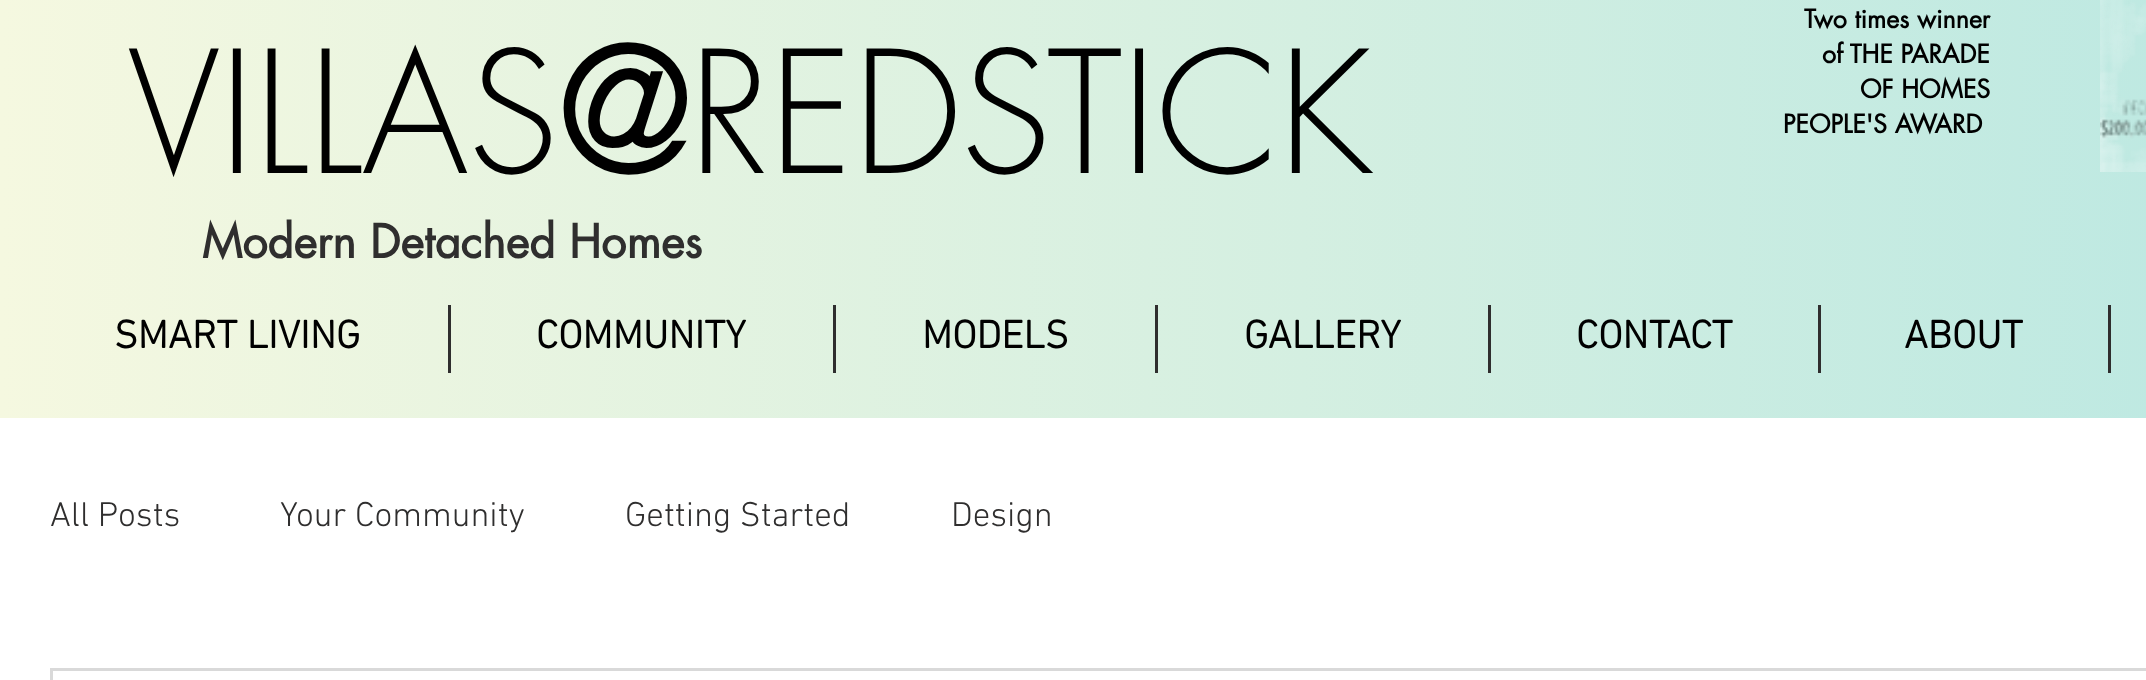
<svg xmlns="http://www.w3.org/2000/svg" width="2146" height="680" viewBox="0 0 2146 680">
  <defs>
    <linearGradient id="g1" gradientUnits="userSpaceOnUse" x1="0" y1="209" x2="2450" y2="209"><stop offset="0" stop-color="rgb(245,248,224)"/><stop offset="1" stop-color="rgb(183,231,226)"/></linearGradient>
  </defs>
  <rect width="100%" height="100%" fill="rgb(255,255,255)"/>
  <rect x="0" y="0" width="2146" height="418" fill="url(#g1)"/>
  <text x="128" y="173" font-family="futura" font-size="165" font-weight="300" fill="rgb(0,0,0)">VILLAS</text>
  <text x="557" y="173" font-family="futura" font-size="165" font-weight="bold" fill="rgb(0,0,0)">@</text>
  <text x="689" y="173" font-family="futura" font-size="165" font-weight="300" fill="rgb(0,0,0)">REDSTICK</text>
  <g font-family="'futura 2'" font-size="25" font-weight="bold" fill="rgb(0,0,0)">
    <text x="1804" y="28">Two times winner</text>
    <text x="1822" y="63">of THE PARADE</text>
    <text x="1860" y="98">OF HOMES</text>
    <text x="1783" y="133">PEOPLE'S AWARD</text>
  </g>
  <image x="2100" y="0" width="46" height="172" href="pic1.png"/>
  <text x="202" y="258" font-family="'futura 2'" font-size="45" font-weight="bold" fill="rgb(47,46,46)">Modern Detached Homes</text>
  <text x="114" y="348" font-family="'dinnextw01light'" font-size="40" font-weight="bold" fill="rgb(0,0,0)">SMART LIVING</text>
  <rect x="448" y="305" width="3" height="68" fill="rgb(47,46,46)"/>
  <text x="536" y="348" font-family="'dinnextw01light'" font-size="40" font-weight="bold" fill="rgb(0,0,0)">COMMUNITY</text>
  <rect x="833" y="305" width="3" height="68" fill="rgb(47,46,46)"/>
  <text x="922" y="348" font-family="'dinnextw01light'" font-size="40" font-weight="bold" fill="rgb(0,0,0)">MODELS</text>
  <rect x="1155" y="305" width="3" height="68" fill="rgb(47,46,46)"/>
  <text x="1244" y="348" font-family="'dinnextw01light'" font-size="40" font-weight="bold" fill="rgb(0,0,0)">GALLERY</text>
  <rect x="1488" y="305" width="3" height="68" fill="rgb(47,46,46)"/>
  <text x="1576" y="348" font-family="'dinnextw01light'" font-size="40" font-weight="bold" fill="rgb(0,0,0)">CONTACT</text>
  <rect x="1818" y="305" width="3" height="68" fill="rgb(47,46,46)"/>
  <text x="1904" y="348" font-family="'dinnextw01light'" font-size="40" font-weight="bold" fill="rgb(0,0,0)">ABOUT</text>
  <rect x="2108" y="305" width="3" height="68" fill="rgb(47,46,46)"/>
  <g font-family="'dinnextw01light'" font-size="35" font-weight="300" fill="rgb(47,46,46)">
    <text x="50" y="526">All Posts</text>
    <text x="280" y="526">Your Community</text>
    <text x="625" y="526">Getting Started</text>
    <text x="951" y="526">Design</text>
  </g>
  <rect x="51.5" y="669.5" width="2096" height="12" fill="none" stroke="rgb(217,217,217)" stroke-width="3"/>
</svg>
